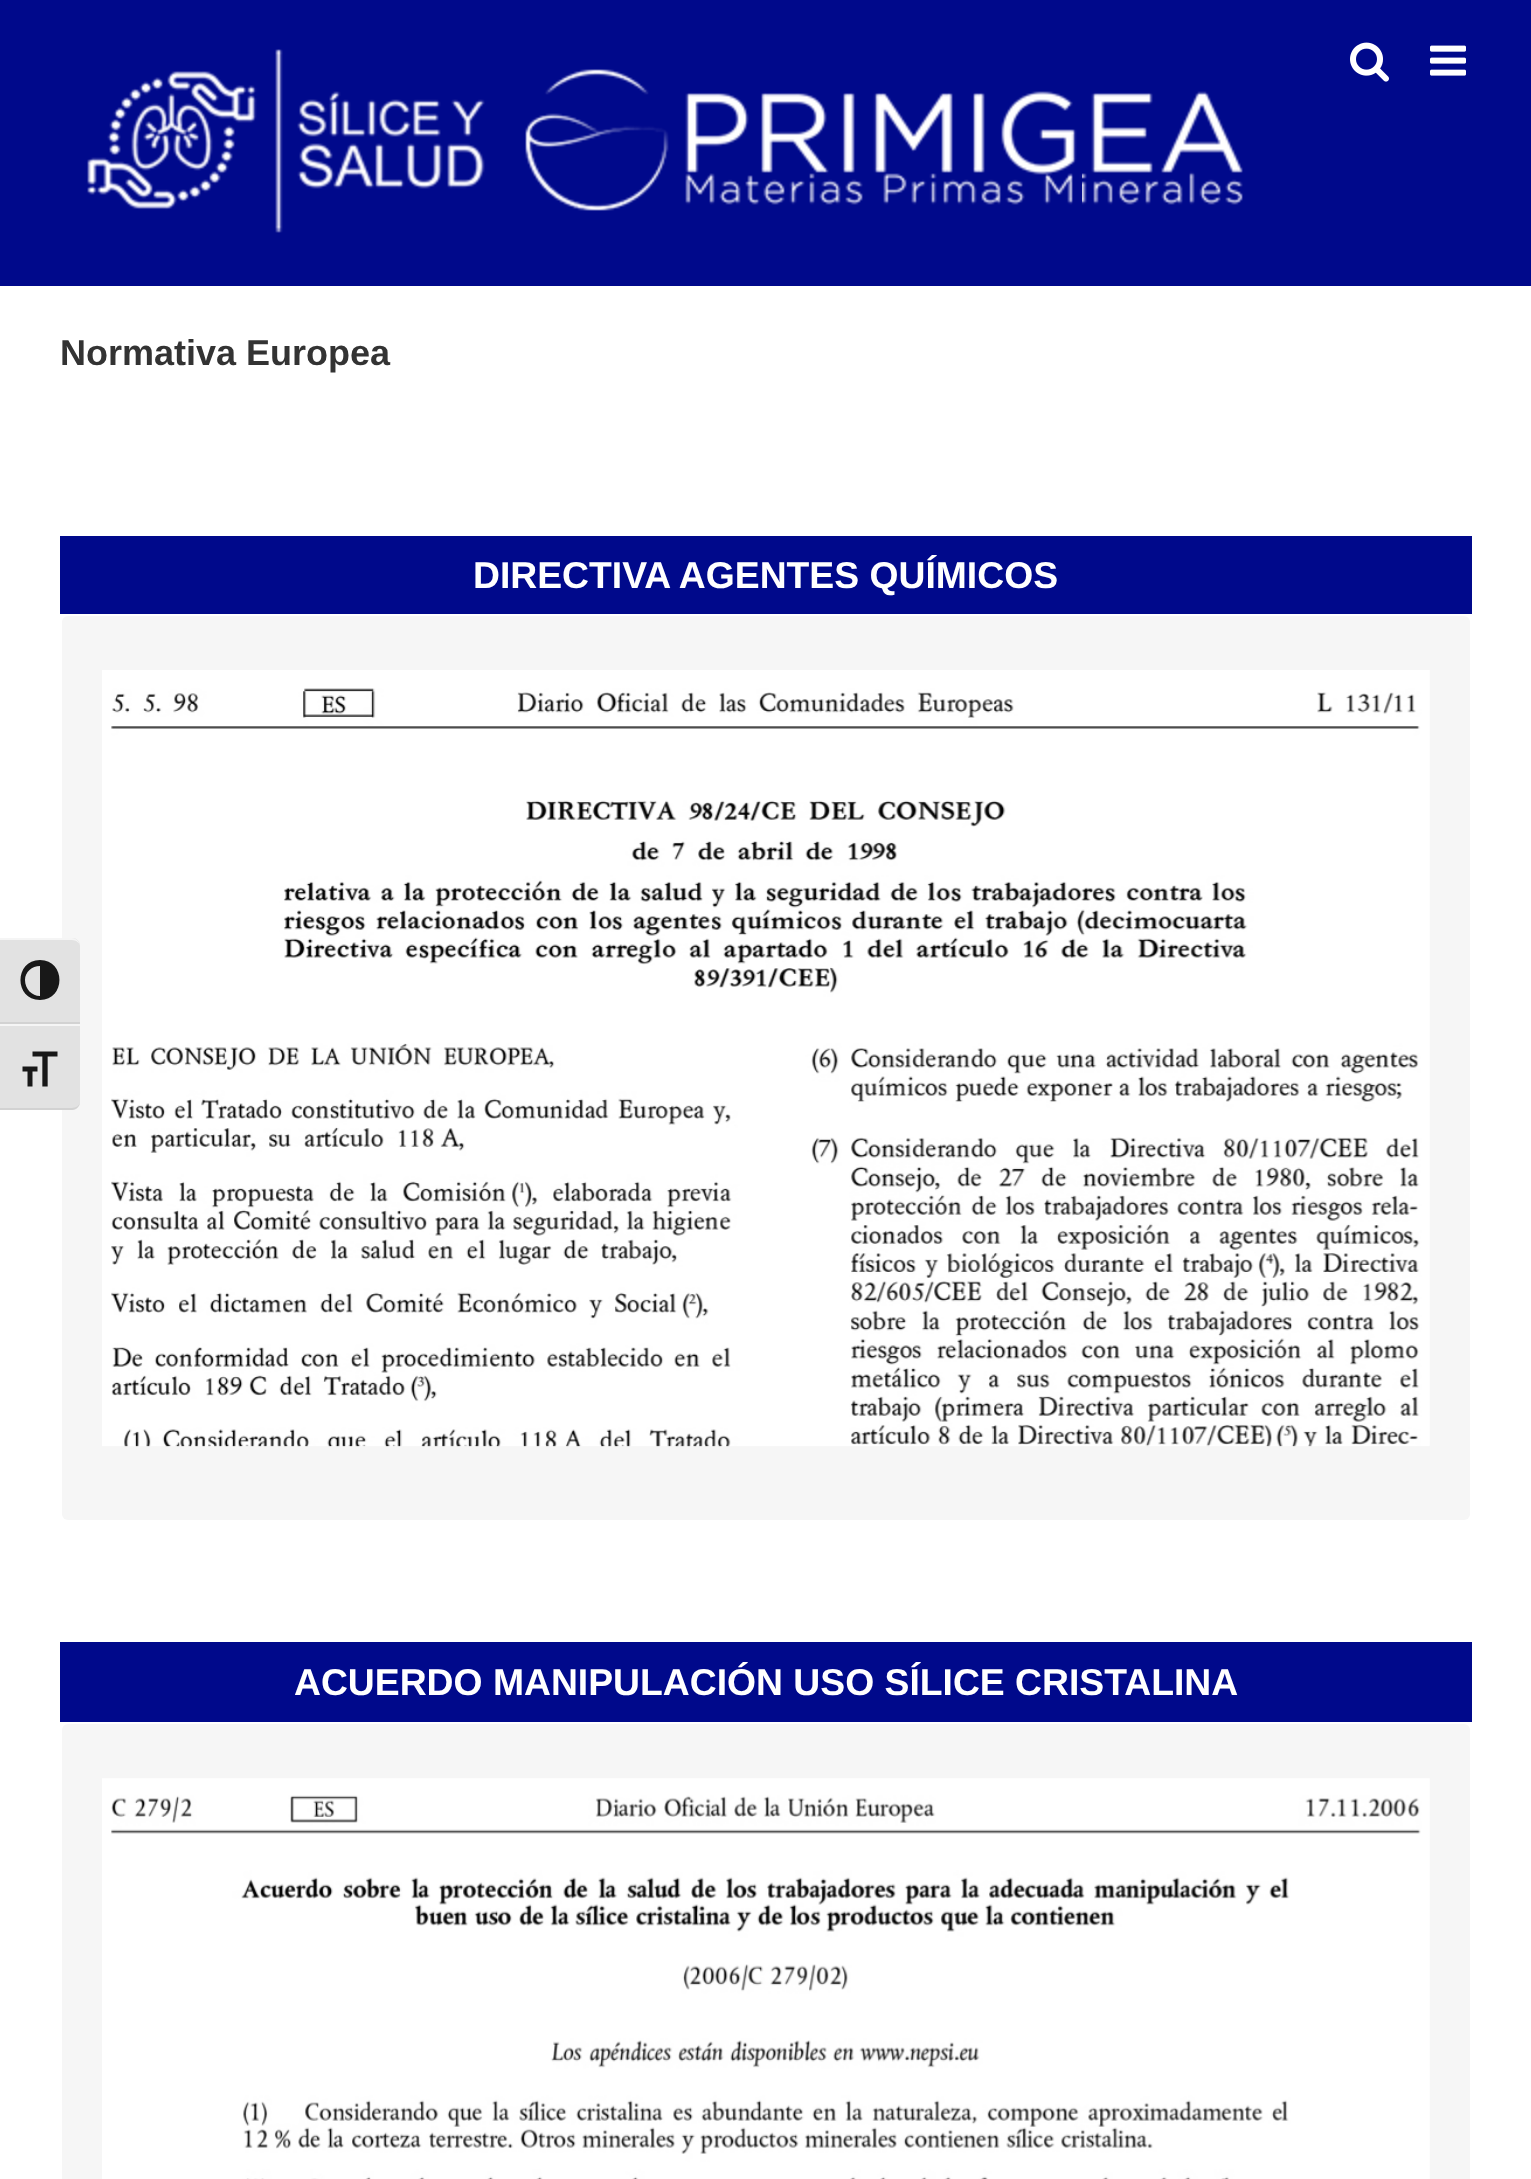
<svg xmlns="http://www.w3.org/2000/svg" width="1531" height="2179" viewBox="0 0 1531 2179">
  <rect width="100%" height="100%" fill="rgb(255,255,255)"/>
  <rect x="62" y="616" width="1408" height="904" rx="6" fill="rgb(246,246,246)"/>
  <path d="M0 938H72C76.5 938 80 941.5 80 946V1024H0Z" fill="rgb(226,226,226)"/>
  <path d="M0 938V940H72C76 940 80 943 80 946C80 942 76 938 72 938Z" fill="rgb(245,245,245)"/>
  <rect x="0" y="1022" width="80" height="2" fill="rgb(210,210,210)"/>
  <path d="M40 960C14 960 14 1000 40 1000C66 1000 66 960 40 960ZM25 980C25 972 32 966 40 966V996C32 996 25 989 25 980Z" fill="rgb(24,24,24)"/>
  <path d="M0 1024H80V1102C80 1106.5 76.5 1110 72 1110H0Z" fill="rgb(226,226,226)"/>
  <rect x="0" y="1024" width="80" height="2" fill="rgb(245,245,245)"/>
  <path d="M0 1108V1110H72C76 1110 80 1106 80 1102C80 1105 76 1108 72 1108Z" fill="rgb(210,210,210)"/>
  <image x="22" y="1051" width="36" height="36" href="pic1.png"/>
  <rect x="0" y="0" width="1531" height="286" fill="rgb(0,9,139)"/>
  <image x="87" y="49" width="1156" height="184" href="pic2.png"/>
  <image x="1350" y="42" width="39" height="40" href="pic3.png"/>
  <image x="1430" y="45" width="36" height="31" href="pic4.png"/>
  <text x="60" y="365" font-family="Liberation Sans" font-size="36" font-weight="bold" fill="rgb(51,51,51)">Normativa Europea</text>
  <rect x="60" y="536" width="1412" height="78" fill="rgb(0,9,139)"/>
  <text x="473" y="588" font-family="Liberation Sans" font-size="37.3" font-weight="bold" fill="rgb(255,255,255)">DIRECTIVA AGENTES QUÍMICOS</text>
  <image x="102" y="670" width="1328" height="777" href="pic5.png"/>
  <rect x="60" y="1642" width="1412" height="80" fill="rgb(0,9,139)"/>
  <text x="294" y="1695" font-family="Liberation Sans" font-size="37.3" font-weight="bold" fill="rgb(255,255,255)">ACUERDO MANIPULACIÓN USO SÍLICE CRISTALINA</text>
  <rect x="62" y="1724" width="1408" height="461" rx="6" fill="rgb(246,246,246)"/>
  <image x="102" y="1778" width="1328" height="401" href="pic6.png"/>
</svg>
